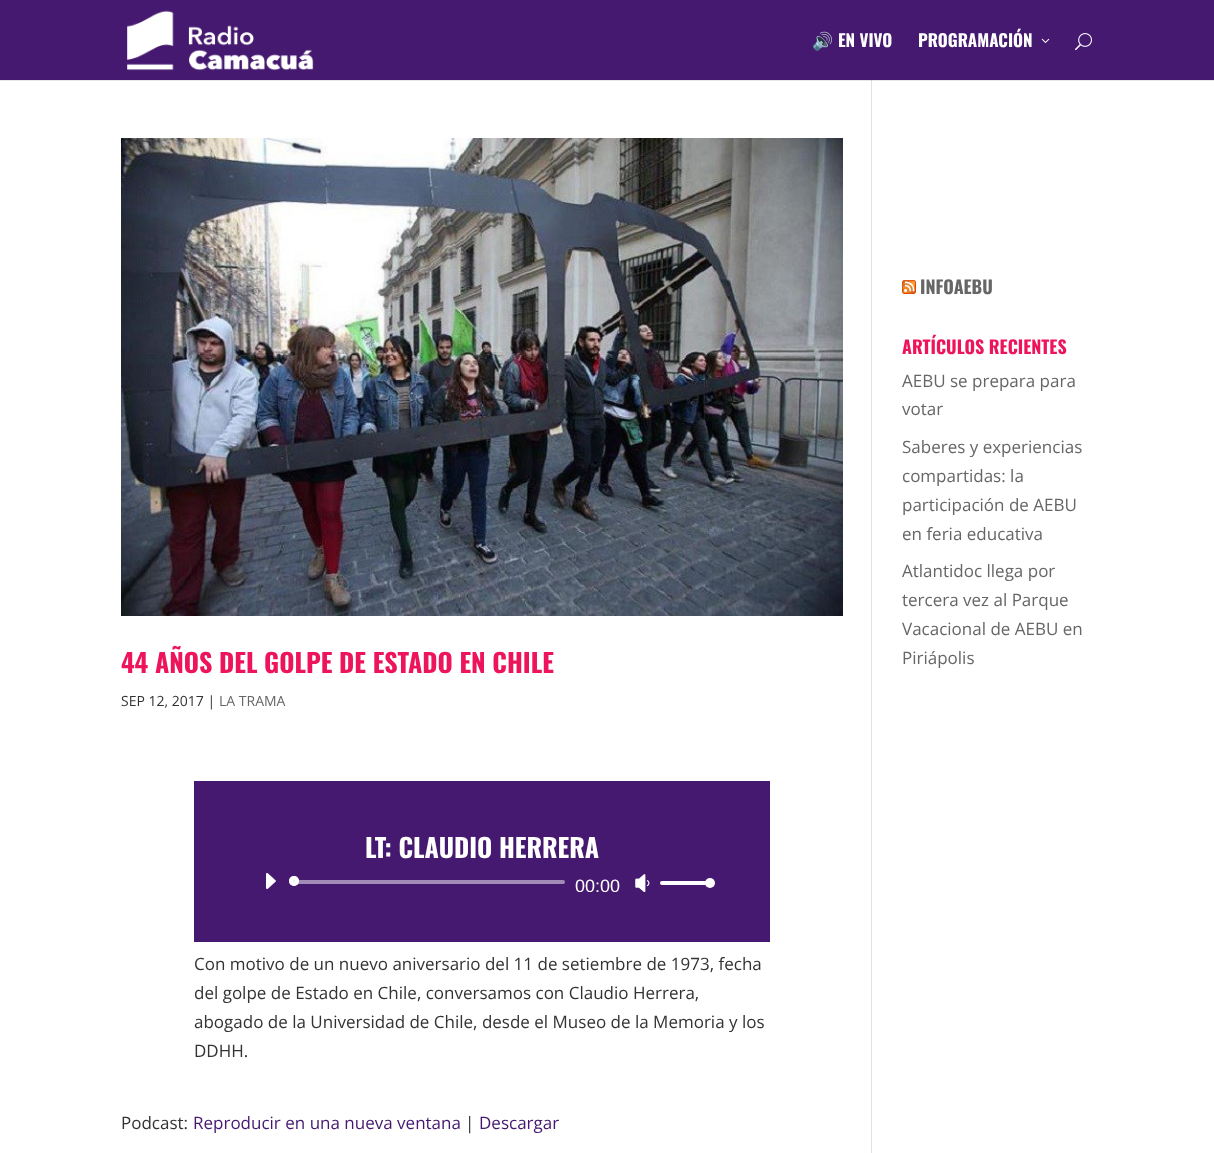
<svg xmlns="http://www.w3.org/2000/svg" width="1214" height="1153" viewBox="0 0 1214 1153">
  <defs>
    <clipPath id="clip1"><rect x="575" y="872" width="45" height="20"/></clipPath>
  </defs>
  <rect width="100%" height="100%" fill="rgb(69,25,111)"/>
  <image x="127" y="10" width="187" height="61" href="pic1.png"/>
  <text x="812" y="47" font-family="Noto Color Emoji" font-size="17" font-weight="bold" fill="rgb(255,255,255)">🔊</text>
  <g font-family="Oswald" font-size="17" font-weight="bold" fill="rgb(255,255,255)">
    <text x="838" y="47">EN VIVO</text>
    <text x="918" y="47">PROGRAMACIÓN</text>
  </g>
  <image x="1041" y="38" width="9" height="5" href="pic2.png"/>
  <image x="1075" y="33" width="17" height="18" href="pic3.png"/>
  <rect x="0" y="81" width="1214" height="1072" fill="rgb(255,255,255)"/>
  <rect x="0" y="80" width="1214" height="1" fill="rgb(230,230,230)"/>
  <rect x="871" y="80" width="1" height="1073" fill="rgb(226,226,226)"/>
  <rect x="871" y="80" width="1" height="1" fill="rgb(203,203,203)"/>
  <image x="902" y="280" width="14" height="14" href="pic4.png"/>
  <text x="920" y="294" font-family="Oswald" font-size="18" font-weight="bold" fill="rgb(102,102,102)">INFOAEBU</text>
  <text x="902" y="354" font-family="Oswald" font-size="18" font-weight="bold" fill="rgb(237,20,91)">ARTÍCULOS RECIENTES</text>
  <g font-family="Open Sans" font-size="17" fill="rgb(102,102,102)">
    <text>
      <tspan x="902" y="387">AEBU se prepara para</tspan>
      <tspan x="902" y="415">votar</tspan>
    </text>
    <text>
      <tspan x="902" y="453">Saberes y experiencias</tspan>
      <tspan x="902" y="482">compartidas: la</tspan>
      <tspan x="902" y="511">participación de AEBU</tspan>
      <tspan x="902" y="540">en feria educativa</tspan>
    </text>
    <text>
      <tspan x="902" y="577">Atlantidoc llega por</tspan>
      <tspan x="902" y="606">tercera vez al Parque</tspan>
      <tspan x="902" y="635">Vacacional de AEBU en</tspan>
      <tspan x="902" y="664">Piriápolis</tspan>
    </text>
  </g>
  <image x="121" y="138" width="722" height="478" href="pic5.png"/>
  <text x="121" y="673" font-family="Oswald" font-size="26" font-weight="bold" fill="rgb(237,20,91)">44 AÑOS DEL GOLPE DE ESTADO EN CHILE</text>
  <text x="121" y="706" font-family="Open Sans" font-size="14" fill="rgb(51,51,51)">SEP 12, 2017 |</text>
  <text x="219" y="706" font-family="Open Sans" font-size="14" fill="rgb(102,102,102)">LA TRAMA</text>
  <rect x="194" y="781" width="576" height="161" fill="rgb(69,25,111)"/>
  <text x="365" y="858" font-family="Oswald" font-size="26" font-weight="bold" fill="rgb(255,255,255)">LT: CLAUDIO HERRERA</text>
  <image x="266" y="873" width="10" height="16" href="pic6.png"/>
  <rect x="296" y="880" width="269" height="4" rx="2" fill="rgb(162,140,183)"/>
  <circle cx="294" cy="881" r="5" fill="rgba(255,255,255,0.9)"/>
  <circle cx="294" cy="881" r="3" fill="none" stroke="rgba(255,255,255,0.9)" stroke-width="4"/>
  <g clip-path="url(#clip1)">
    <text x="575" y="892" font-family="Liberation Sans" font-size="18" fill="rgb(255,255,255)">00:00</text>
  </g>
  <image x="635" y="874" width="15" height="18" href="pic7.png"/>
  <rect x="660" y="881" width="50" height="4" rx="2" fill="rgb(255,255,255)"/>
  <circle cx="710" cy="883" r="5" fill="rgb(255,255,255)"/>
  <g font-family="Open Sans" font-size="17" fill="rgb(51,51,51)">
    <text>
      <tspan x="194" y="970">Con motivo de un nuevo aniversario del 11 de setiembre de 1973, fecha</tspan>
      <tspan x="194" y="999">del golpe de Estado en Chile, conversamos con Claudio Herrera,</tspan>
      <tspan x="194" y="1028">abogado de la Universidad de Chile, desde el Museo de la Memoria y los</tspan>
      <tspan x="194" y="1057">DDHH.</tspan>
    </text>
    <text x="121" y="1129">Podcast:</text>
  </g>
  <text x="193" y="1129" font-family="Open Sans" font-size="17" fill="rgb(69,25,111)">Reproducir en una nueva ventana</text>
  <text x="465" y="1129" font-family="Open Sans" font-size="17" fill="rgb(51,51,51)">|</text>
  <text x="479" y="1129" font-family="Open Sans" font-size="17" fill="rgb(69,25,111)">Descargar</text>
</svg>
